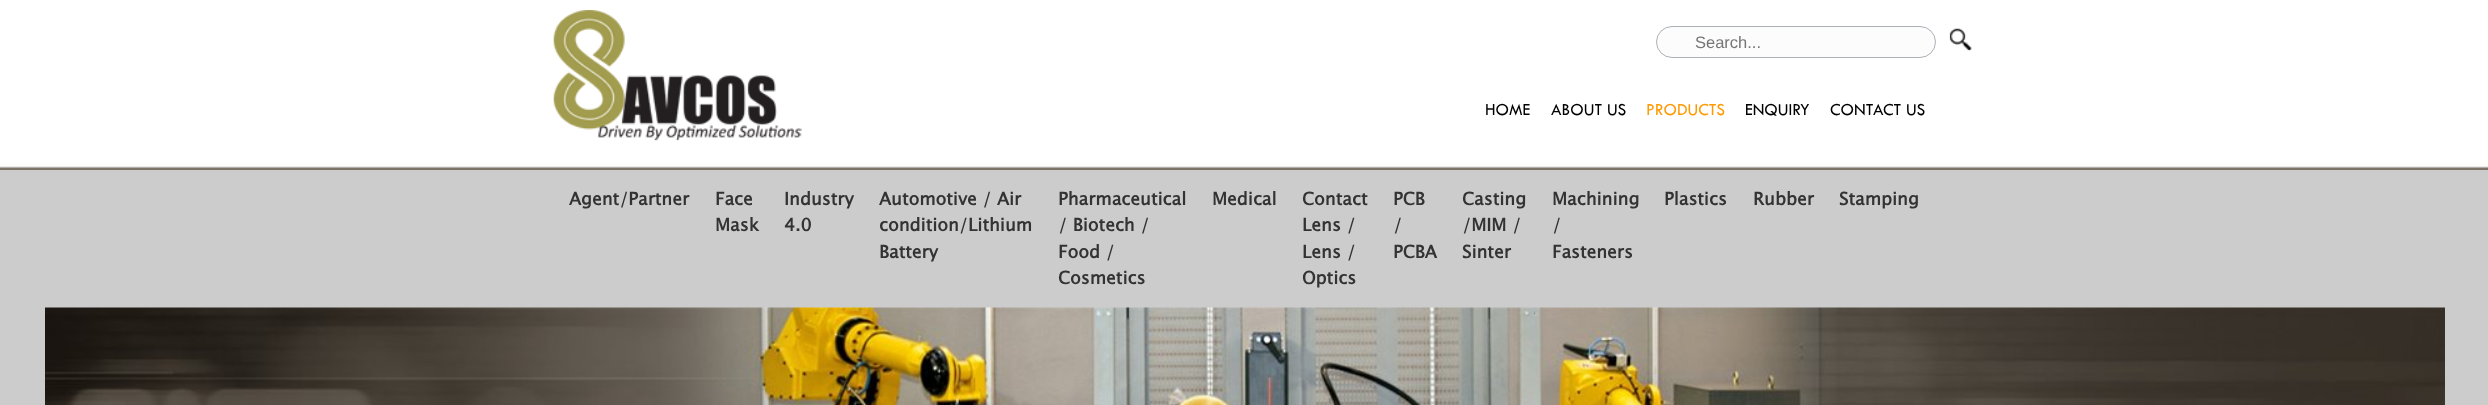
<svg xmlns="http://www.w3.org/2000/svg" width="2488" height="405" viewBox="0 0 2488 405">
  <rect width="100%" height="100%" fill="rgb(255,255,255)"/>
  <image x="0" y="0" width="2488" height="170" href="pic1.png"/>
  <image x="553" y="10" width="249" height="131" href="pic2.png"/>
  <rect x="1656.5" y="26.5" width="279" height="31" rx="15.5" fill="rgb(252,252,252)" stroke="rgb(172,177,183)"/>
  <text x="1695" y="48" font-family="Liberation Sans" font-size="16.5" fill="rgb(117,117,117)">Search...</text>
  <image x="1949" y="28" width="23" height="23" href="pic3.png"/>
  <g font-family="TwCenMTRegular" font-size="17.5" fill="rgb(0,0,0)">
    <text x="1485" y="115">HOME</text>
    <text x="1551" y="115">ABOUT US</text>
  </g>
  <text x="1646" y="115" font-family="TwCenMTRegular" font-size="17.5" fill="rgb(255,153,0)">PRODUCTS</text>
  <g font-family="TwCenMTRegular" font-size="17.5" fill="rgb(0,0,0)">
    <text x="1745" y="115">ENQUIRY</text>
    <text x="1830" y="115">CONTACT US</text>
  </g>
  <rect x="0" y="170" width="2488" height="235" fill="rgb(204,204,204)"/>
  <g font-family="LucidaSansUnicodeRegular" font-size="17.5" font-weight="bold" fill="rgb(51,51,51)">
    <text x="569" y="205">Agent/Partner</text>
    <text>
      <tspan x="715" y="205">Face</tspan>
      <tspan x="715" y="231">Mask</tspan>
    </text>
    <text>
      <tspan x="784" y="205">Industry</tspan>
      <tspan x="784" y="231">4.0</tspan>
    </text>
    <text>
      <tspan x="879" y="205">Automotive / Air</tspan>
      <tspan x="879" y="231">condition/Lithium</tspan>
      <tspan x="879" y="258">Battery</tspan>
    </text>
    <text>
      <tspan x="1058" y="205">Pharmaceutical</tspan>
      <tspan x="1058" y="231">/ Biotech /</tspan>
      <tspan x="1058" y="258">Food /</tspan>
      <tspan x="1058" y="284">Cosmetics</tspan>
    </text>
    <text x="1212" y="205">Medical</text>
    <text>
      <tspan x="1302" y="205">Contact</tspan>
      <tspan x="1302" y="231">Lens /</tspan>
      <tspan x="1302" y="258">Lens /</tspan>
      <tspan x="1302" y="284">Optics</tspan>
    </text>
    <text>
      <tspan x="1393" y="205">PCB</tspan>
      <tspan x="1393" y="231">/</tspan>
      <tspan x="1393" y="258">PCBA</tspan>
    </text>
    <text>
      <tspan x="1462" y="205">Casting</tspan>
      <tspan x="1462" y="231">/MIM /</tspan>
      <tspan x="1462" y="258">Sinter</tspan>
    </text>
    <text>
      <tspan x="1552" y="205">Machining</tspan>
      <tspan x="1552" y="231">/</tspan>
      <tspan x="1552" y="258">Fasteners</tspan>
    </text>
    <text x="1664" y="205">Plastics</text>
    <text x="1753" y="205">Rubber</text>
    <text x="1839" y="205">Stamping</text>
  </g>
  <image x="45" y="307" width="2400" height="98" href="pic4.png"/>
</svg>
